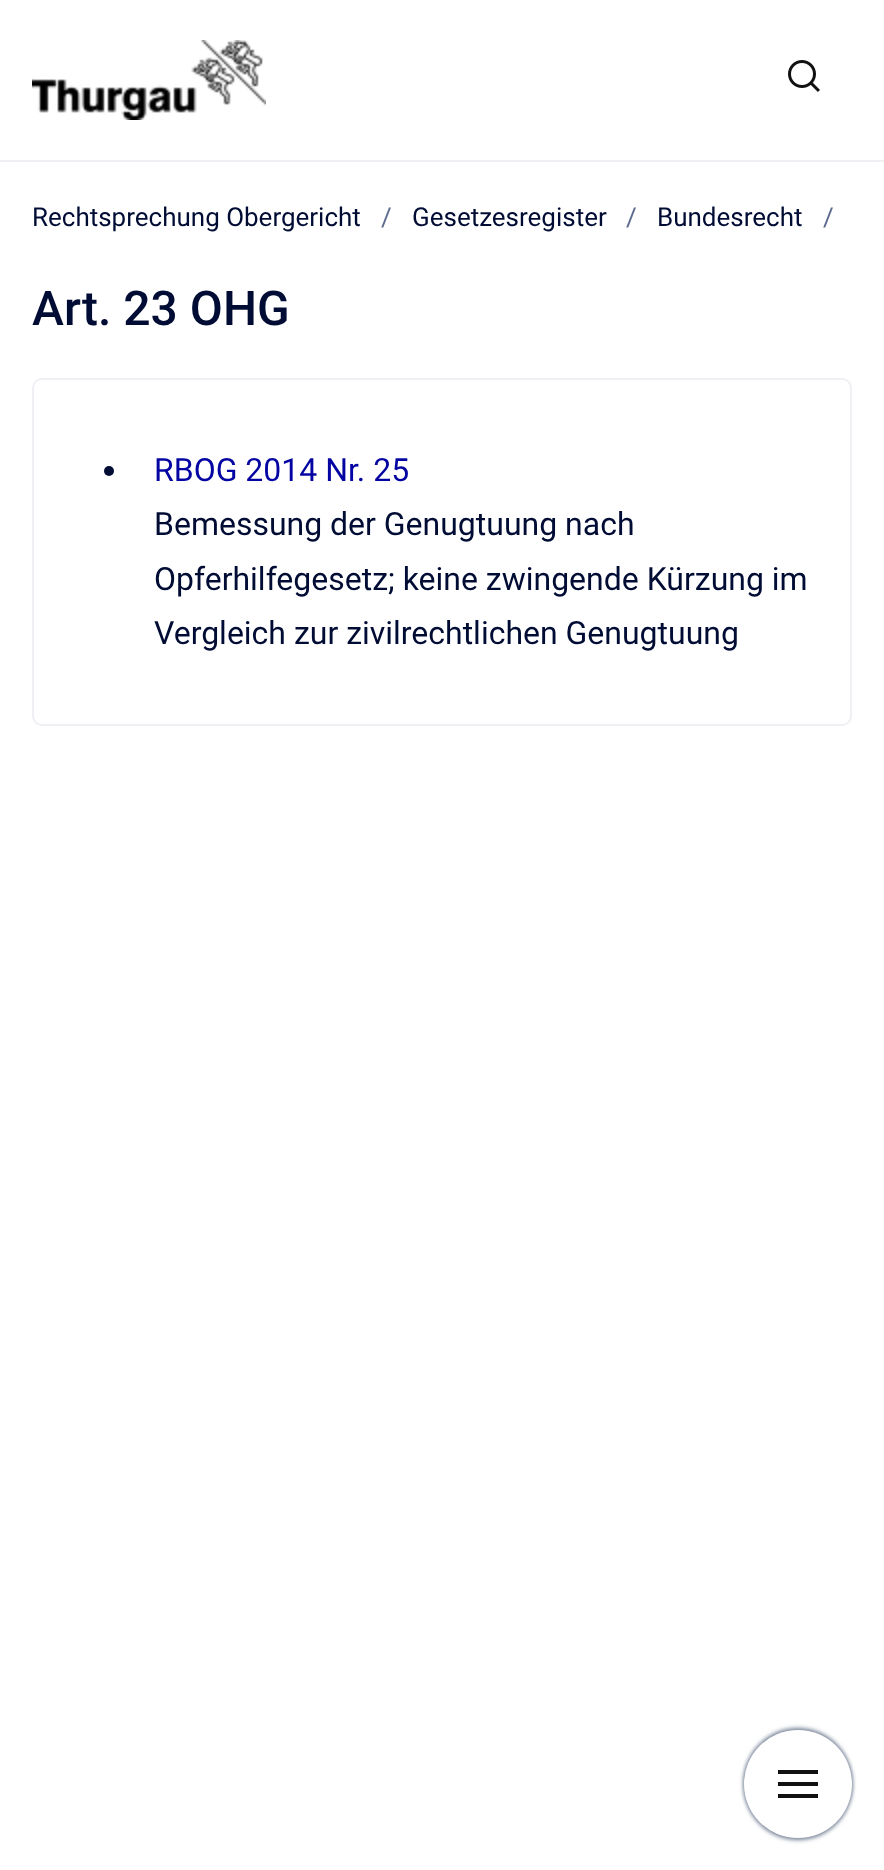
<svg xmlns="http://www.w3.org/2000/svg" width="884" height="1870" viewBox="0 0 884 1870">
  <rect width="100%" height="100%" fill="rgb(255,255,255)"/>
  <rect x="0" y="160" width="884" height="2" fill="rgb(239,240,244)"/>
  <image x="32" y="40" width="234" height="80" href="pic1.png"/>
  <image x="788" y="60" width="32" height="32" href="pic2.png"/>
  <text x="32" y="226" font-family="Roboto" font-size="26" fill="rgb(0,12,52)">Rechtsprechung Obergericht</text>
  <text x="381" y="226" font-family="Roboto" font-size="26" fill="rgb(93,107,143)">/</text>
  <text x="412" y="226" font-family="Roboto" font-size="26" fill="rgb(0,12,52)">Gesetzesregister</text>
  <text x="626" y="226" font-family="Roboto" font-size="26" fill="rgb(93,107,143)">/</text>
  <text x="657" y="226" font-family="Roboto" font-size="26" fill="rgb(0,12,52)">Bundesrecht</text>
  <text x="823" y="226" font-family="Roboto" font-size="26" fill="rgb(93,107,143)">/</text>
  <text x="32" y="325" font-family="Roboto" font-size="48" font-weight="500" fill="rgb(0,12,52)">Art. 23 OHG</text>
  <rect x="33" y="379" width="818" height="346" rx="9" fill="none" stroke="rgb(239,240,244)" stroke-width="2"/>
  <circle cx="109" cy="471" r="5" fill="rgb(0,12,52)"/>
  <text x="154" y="481" font-family="Roboto" font-size="32" fill="rgb(4,4,163)">RBOG 2014 Nr. 25</text>
  <g font-family="Roboto" font-size="32" fill="rgb(0,12,52)">
    <text>
      <tspan x="154" y="535">Bemessung der Genugtuung nach</tspan>
      <tspan x="154" y="590">Opferhilfegesetz; keine zwingende Kürzung im</tspan>
      <tspan x="154" y="644">Vergleich zur zivilrechtlichen Genugtuung</tspan>
    </text>
  </g>
  <rect x="744" y="1728" width="108" height="108" rx="54" fill="rgb(122,134,154)" filter="blur(2px)"/>
  <rect x="744" y="1732" width="108" height="108" rx="54" fill="rgb(122,134,154)" filter="blur(2px)"/>
  <circle cx="798" cy="1784" r="54" fill="rgb(255,255,255)"/>
  <rect x="778" y="1770" width="40" height="4" fill="rgb(17,17,17)"/>
  <rect x="778" y="1782" width="40" height="4" fill="rgb(17,17,17)"/>
  <rect x="778" y="1794" width="40" height="4" fill="rgb(17,17,17)"/>
</svg>
